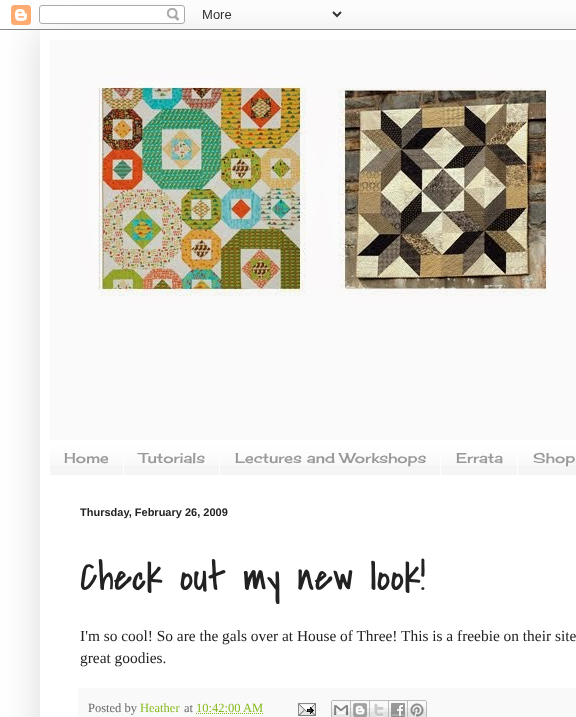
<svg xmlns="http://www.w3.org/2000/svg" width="576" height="717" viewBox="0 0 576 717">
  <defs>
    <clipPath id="clip1"><path d="M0 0H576V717H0ZM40 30H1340V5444H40Z" clip-rule="evenodd"/></clipPath>
  </defs>
  <rect width="100%" height="100%" fill="rgb(255,255,255)"/>
  <g clip-path="url(#clip1)">
    <rect x="40" y="30" width="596" height="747" fill="rgba(0,0,0,0.15)" filter="blur(20px)"/>
  </g>
  <image x="0" y="5" width="576" height="25" href="pic1.png"/>
  <image x="50" y="40" width="526" height="400" href="pic2.png"/>
  <rect x="50" y="442" width="526" height="33" fill="rgb(245,245,245)"/>
  <image x="50" y="441" width="526" height="24" href="pic3.png"/>
  <rect x="123" y="452" width="1" height="23" fill="rgb(255,255,255)"/>
  <text x="64" y="463" font-family="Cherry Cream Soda" font-size="14" fill="rgb(153,153,153)">Home</text>
  <rect x="219" y="452" width="1" height="23" fill="rgb(255,255,255)"/>
  <text x="139" y="463" font-family="Cherry Cream Soda" font-size="14" fill="rgb(153,153,153)">Tutorials</text>
  <rect x="440" y="452" width="1" height="23" fill="rgb(255,255,255)"/>
  <text x="235" y="463" font-family="Cherry Cream Soda" font-size="14" fill="rgb(153,153,153)">Lectures and Workshops</text>
  <rect x="517" y="452" width="1" height="23" fill="rgb(255,255,255)"/>
  <g font-family="Cherry Cream Soda" font-size="14" fill="rgb(153,153,153)">
    <text x="456" y="463">Errata</text>
    <text x="533" y="463">Shop</text>
  </g>
  <text x="80" y="516" font-family="Liberation Sans" font-size="11" font-weight="bold" fill="rgb(34,34,34)">Thursday, February 26, 2009</text>
  <text x="80" y="590" font-family="Covered By Your Grace" font-size="42" fill="rgb(34,34,34)">Check out my new look!</text>
  <g font-family="Liberation Serif" font-size="15.4" fill="rgb(34,34,34)">
    <text>
      <tspan x="80" y="641">I'm so cool! So are the gals over at House of Three! This is a freebie on their site</tspan>
      <tspan x="80" y="663">great goodies.</tspan>
    </text>
  </g>
  <rect x="78" y="688" width="498" height="29" fill="rgb(249,249,249)"/>
  <text x="88" y="712" font-family="Liberation Serif" font-size="12.5" fill="rgb(102,102,102)">Posted by</text>
  <text x="140" y="712" font-family="Liberation Serif" font-size="12.5" fill="rgb(136,187,33)">Heather</text>
  <text x="184" y="712" font-family="Liberation Serif" font-size="12.5" fill="rgb(102,102,102)">at</text>
  <text x="196" y="712" font-family="Liberation Serif" font-size="12.5" fill="rgb(136,187,33)">10:42:00 AM</text>
  <path d="M196 713.5H263.5" fill="none" stroke="rgb(136,187,33)" stroke-dasharray="1 1"/>
  <image x="298" y="703" width="18" height="13" href="pic4.png"/>
  <image x="331" y="700" width="20" height="17" href="pic5.png"/>
  <image x="351" y="700" width="19" height="17" href="pic6.png"/>
  <image x="370" y="700" width="19" height="17" href="pic7.png"/>
  <image x="389" y="700" width="19" height="17" href="pic8.png"/>
  <image x="408" y="700" width="19" height="17" href="pic9.png"/>
</svg>
